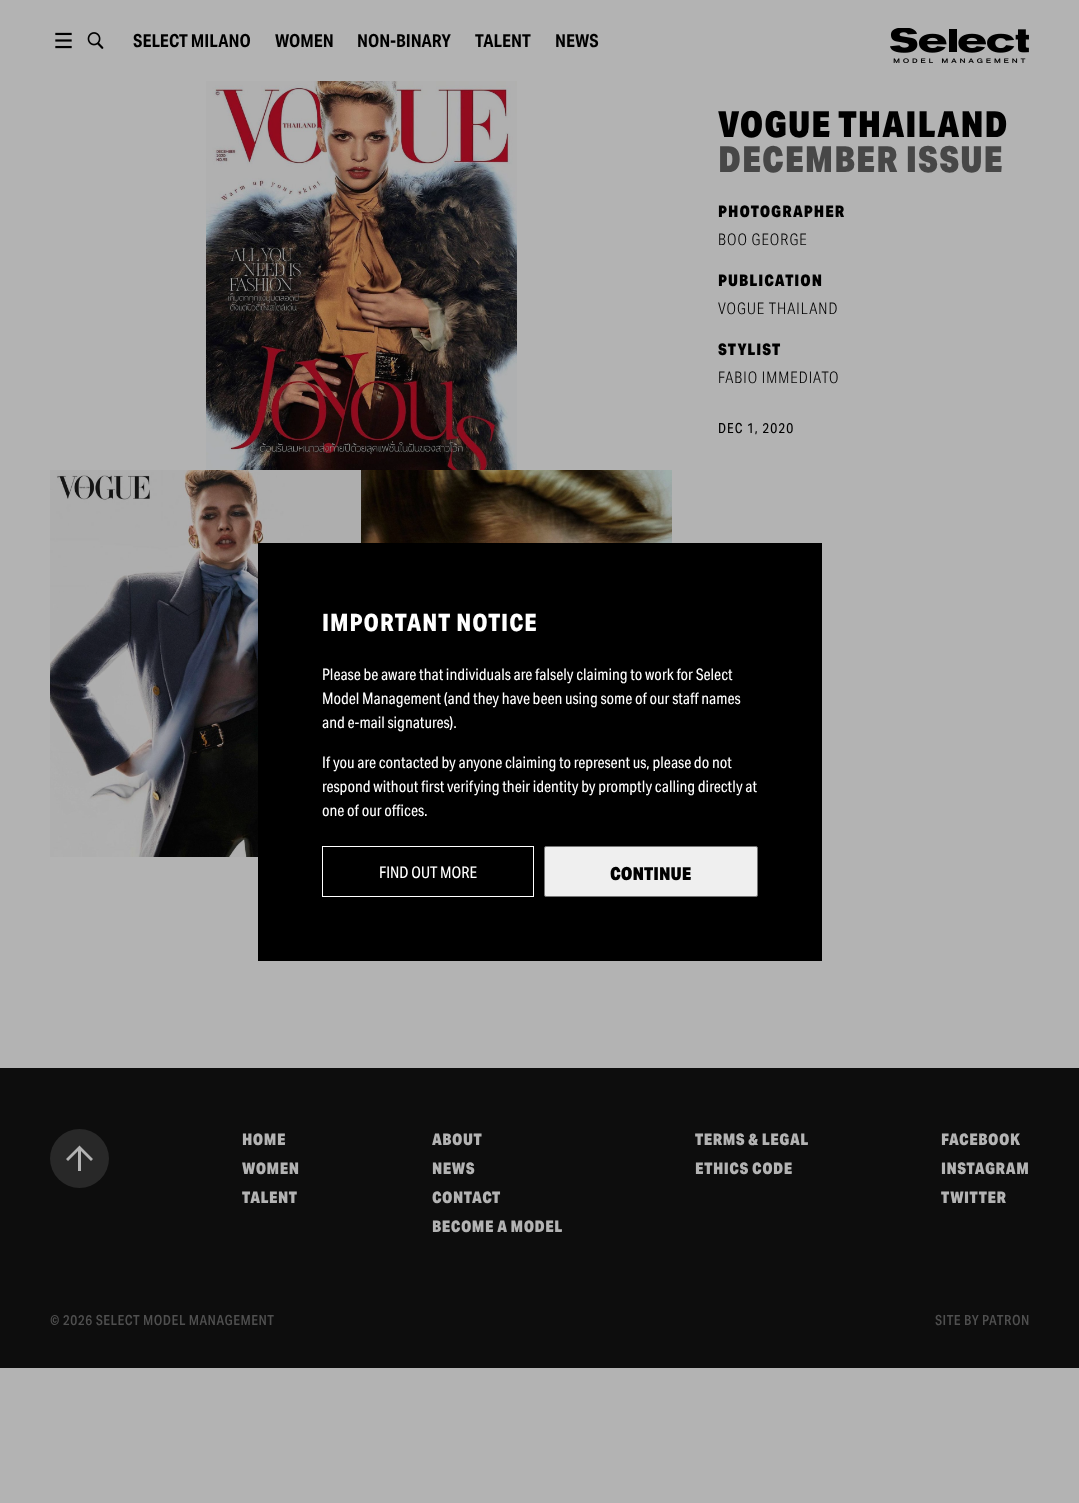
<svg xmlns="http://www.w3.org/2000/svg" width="1079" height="1503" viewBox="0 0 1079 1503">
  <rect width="100%" height="100%" fill="rgb(179,179,179)"/>
  <image x="55" y="32" width="17" height="17" href="pic1.png"/>
  <image x="87" y="32" width="17" height="17" href="pic2.png"/>
  <g font-family="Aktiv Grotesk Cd" font-size="18" font-weight="bold" fill="rgb(0,0,0)">
    <text x="133" y="47">SELECT MILANO</text>
    <text x="275" y="47">WOMEN</text>
    <text x="357" y="47">NON-BINARY</text>
    <text x="475" y="47">TALENT</text>
    <text x="555" y="47">NEWS</text>
  </g>
  <image x="890" y="28" width="139" height="35" href="pic3.png"/>
  <image x="50" y="470" width="311" height="387" href="pic5.png"/>
  <rect x="258" y="543" width="564" height="418" fill="rgb(0,0,0)"/>
  <text x="322" y="631" font-family="'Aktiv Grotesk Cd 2'" font-size="24" font-weight="bold" letter-spacing="1" fill="rgb(255,255,255)">IMPORTANT NOTICE</text>
  <g font-family="Aktiv Grotesk Cd" font-size="16" fill="rgb(255,255,255)">
    <text>
      <tspan x="322" y="680">Please be aware that individuals are falsely claiming to work for Select</tspan>
      <tspan x="322" y="704">Model Management (and they have been using some of our staff names</tspan>
      <tspan x="322" y="728">and e-mail signatures).</tspan>
    </text>
    <text>
      <tspan x="322" y="768">If you are contacted by anyone claiming to represent us, please do not</tspan>
      <tspan x="322" y="792">respond without first verifying their identity by promptly calling directly at</tspan>
      <tspan x="322" y="816">one of our offices.</tspan>
    </text>
  </g>
  <rect x="322.5" y="846.5" width="211" height="50" fill="none" stroke="rgb(255,255,255)"/>
  <text x="379" y="878" font-family="Aktiv Grotesk Cd" font-size="16" fill="rgb(255,255,255)">FIND OUT MORE</text>
  <rect x="544.5" y="846.5" width="213" height="50" rx="1.5" fill="rgb(239,239,239)" stroke="rgb(118,118,118)"/>
  <text x="610" y="880" font-family="Aktiv Grotesk Cd" font-size="18" font-weight="900" fill="rgb(0,0,0)">CONTINUE</text>
  <image x="206" y="81" width="311" height="389" href="pic4.png"/>
  <image x="361" y="470" width="311" height="73" href="pic6.png"/>
  <text x="718" y="137" font-family="Aktiv Grotesk Cd" font-size="36" font-weight="900" letter-spacing="1" fill="rgb(0,0,0)">VOGUE THAILAND</text>
  <text x="718" y="172" font-family="Aktiv Grotesk Cd" font-size="36" font-weight="900" letter-spacing="1" fill="rgb(71,71,71)">DECEMBER ISSUE</text>
  <text x="718" y="217" font-family="Aktiv Grotesk Cd" font-size="16" font-weight="900" letter-spacing="1" fill="rgb(0,0,0)">PHOTOGRAPHER</text>
  <text x="718" y="245" font-family="Aktiv Grotesk Cd" font-size="16" font-weight="300" letter-spacing="1" fill="rgb(0,0,0)">BOO GEORGE</text>
  <text x="718" y="286" font-family="Aktiv Grotesk Cd" font-size="16" font-weight="900" letter-spacing="1" fill="rgb(0,0,0)">PUBLICATION</text>
  <text x="718" y="314" font-family="Aktiv Grotesk Cd" font-size="16" font-weight="300" letter-spacing="1" fill="rgb(0,0,0)">VOGUE THAILAND</text>
  <text x="718" y="355" font-family="Aktiv Grotesk Cd" font-size="16" font-weight="900" letter-spacing="1" fill="rgb(0,0,0)">STYLIST</text>
  <text x="718" y="383" font-family="Aktiv Grotesk Cd" font-size="16" font-weight="300" letter-spacing="1" fill="rgb(0,0,0)">FABIO IMMEDIATO</text>
  <text x="718" y="433" font-family="Aktiv Grotesk Cd" font-size="14" letter-spacing="1" fill="rgb(0,0,0)">DEC 1, 2020</text>
  <rect x="0" y="1068" width="1079" height="300" fill="rgb(13,13,13)"/>
  <circle cx="79.5" cy="1158.5" r="29.5" fill="rgb(40,40,40)"/>
  <path d="M78 1151L68 1161L66 1159L79.5 1145.5L93 1159L91 1161L81 1151V1171H78Z" fill="rgb(179,179,179)" fill-rule="evenodd"/>
  <g font-family="Aktiv Grotesk Cd" font-size="16" font-weight="900" letter-spacing="0.5" fill="rgb(179,179,179)">
    <text>
      <tspan x="242" y="1145">HOME</tspan>
      <tspan x="242" y="1174">WOMEN</tspan>
      <tspan x="242" y="1203">TALENT</tspan>
    </text>
    <text>
      <tspan x="432" y="1145">ABOUT</tspan>
      <tspan x="432" y="1174">NEWS</tspan>
      <tspan x="432" y="1203">CONTACT</tspan>
      <tspan x="432" y="1232">BECOME A MODEL</tspan>
    </text>
    <text>
      <tspan x="695" y="1145">TERMS &amp; LEGAL</tspan>
      <tspan x="695" y="1174">ETHICS CODE</tspan>
    </text>
    <text>
      <tspan x="941" y="1145">FACEBOOK</tspan>
      <tspan x="941" y="1174">INSTAGRAM</tspan>
      <tspan x="941" y="1203">TWITTER</tspan>
    </text>
  </g>
  <g font-family="Aktiv Grotesk Cd" font-size="14" font-weight="500" letter-spacing="0.5" fill="rgb(79,79,79)">
    <text x="50" y="1325">© 2026 SELECT MODEL MANAGEMENT</text>
    <text x="935" y="1325">SITE BY PATRON</text>
  </g>
</svg>
